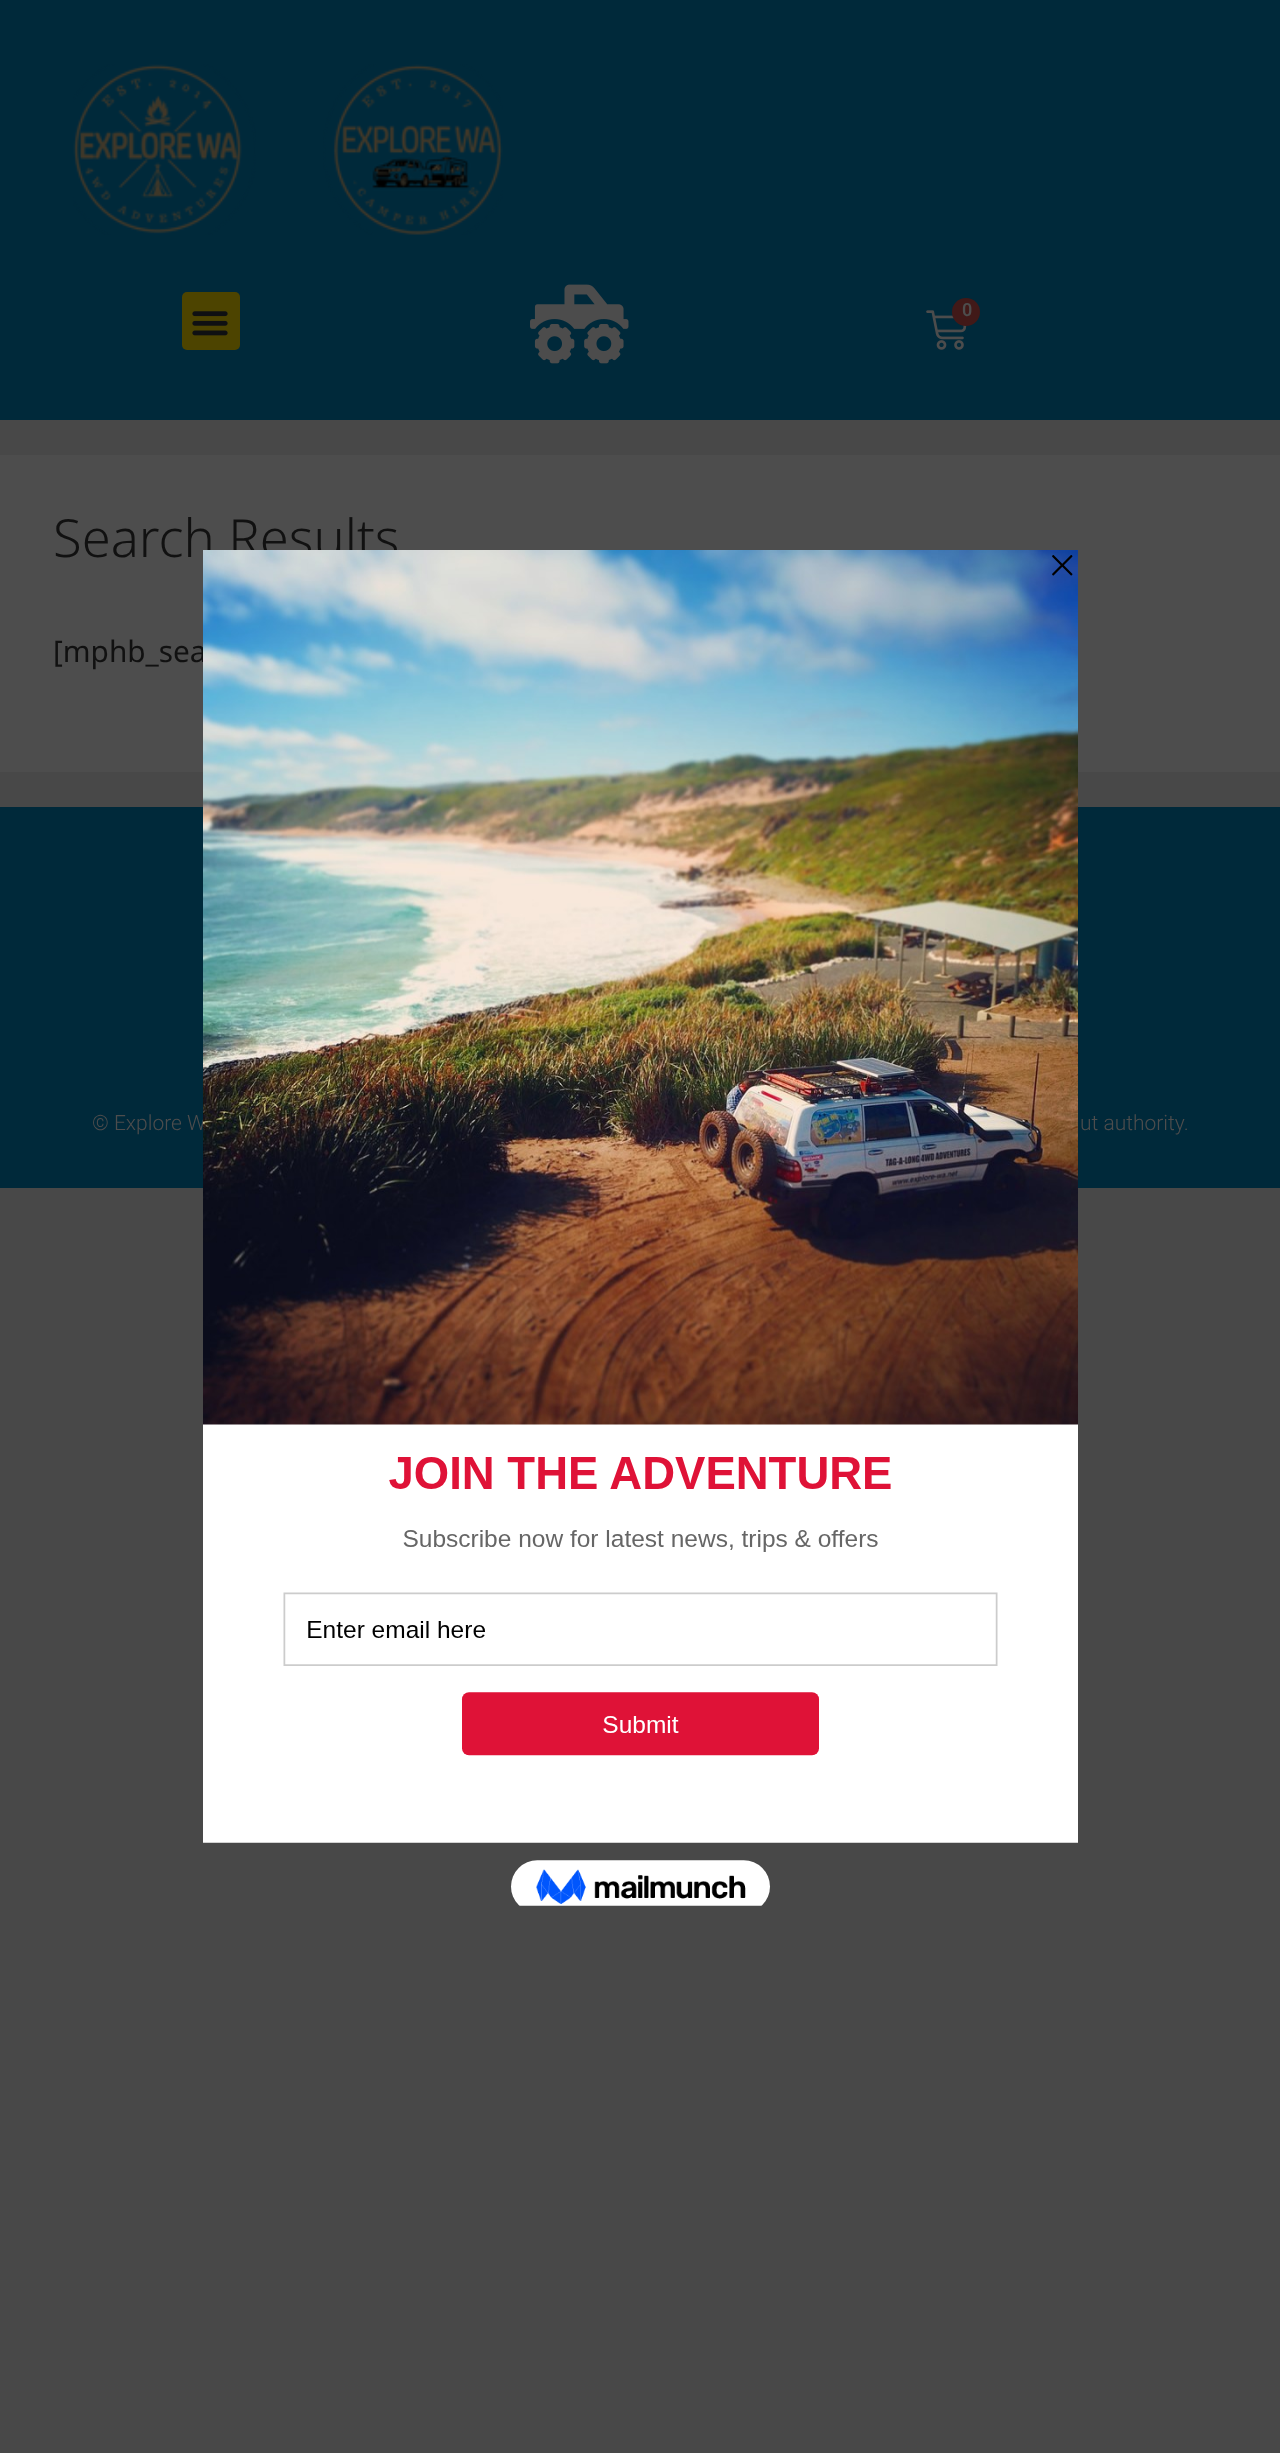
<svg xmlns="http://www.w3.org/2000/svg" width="1280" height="2453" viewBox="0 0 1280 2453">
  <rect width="100%" height="100%" fill="rgb(72,72,72)"/>
  <rect x="0" y="0" width="1280" height="420" fill="rgb(0,41,58)"/>
  <image x="73" y="64" width="430" height="171" href="pic1.png"/>
  <rect x="182" y="292" width="58" height="58" rx="5" fill="rgb(77,68,0)"/>
  <image x="192" y="311" width="36" height="25" href="pic2.png"/>
  <image x="530" y="284" width="99" height="80" href="pic3.png"/>
  <image x="926" y="310" width="41" height="40" href="pic4.png"/>
  <circle cx="966" cy="312" r="14" fill="rgb(65,25,24)"/>
  <text x="962" y="316" font-family="Roboto" font-size="18" font-weight="600" fill="rgb(77,77,77)">0</text>
  <rect x="0" y="455" width="1280" height="317" fill="rgb(77,77,77)"/>
  <text x="53" y="557" font-family="Noto Sans" font-size="52.5" font-weight="300" fill="rgb(17,17,17)">Search Results</text>
  <text x="53" y="662" font-family="Noto Sans" font-size="29.75" fill="rgb(17,17,17)">[mphb_sea</text>
  <rect x="0" y="807" width="1280" height="381" fill="rgb(0,41,58)"/>
  <text x="92" y="1130" font-family="Roboto" font-size="21" font-weight="300" fill="rgb(77,77,77)">© Explore W</text>
  <image x="203" y="550" width="875" height="1356" href="pic5.png"/>
  <text x="1080" y="1130" font-family="Roboto" font-size="21" font-weight="300" fill="rgb(77,77,77)">ut authority.</text>
</svg>
